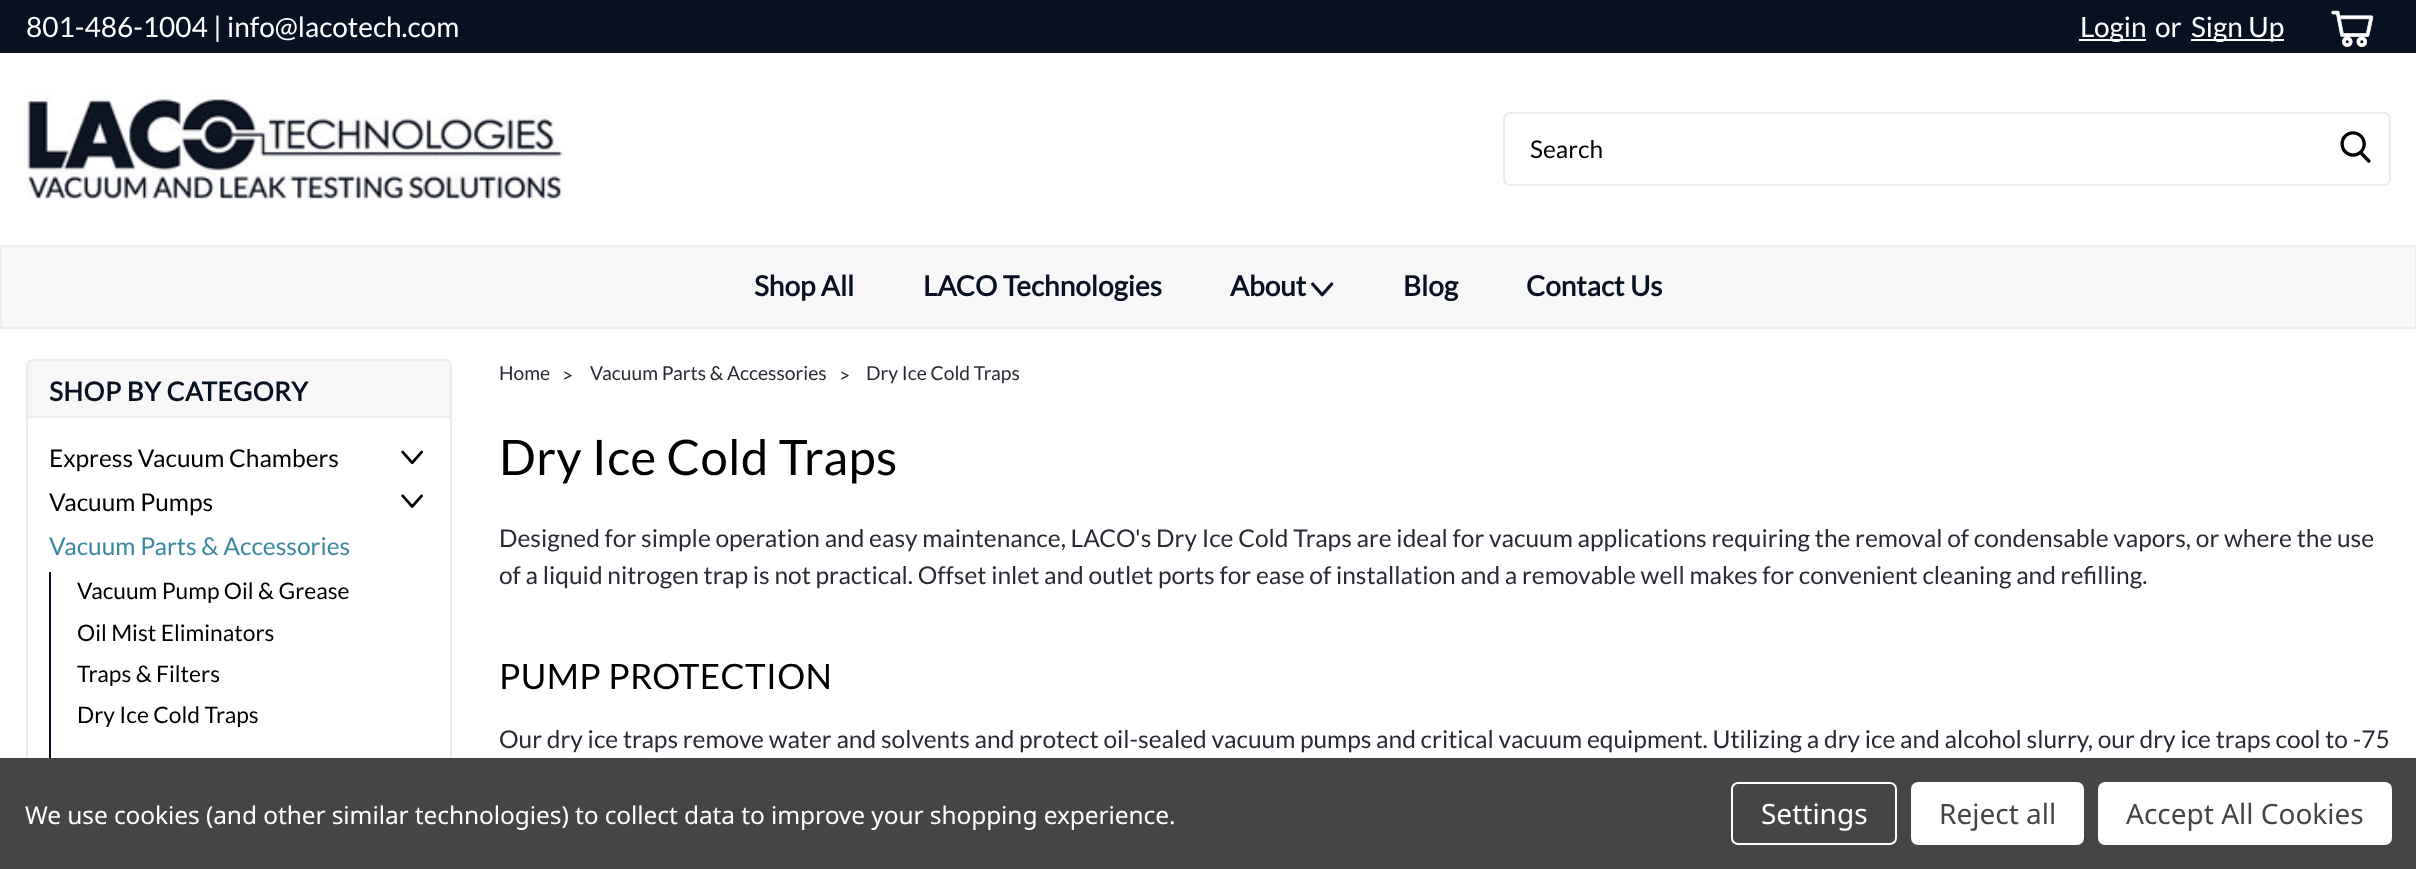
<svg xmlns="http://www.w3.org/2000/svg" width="2416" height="869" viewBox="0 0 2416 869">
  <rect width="100%" height="100%" fill="rgb(255,255,255)"/>
  <rect x="0" y="0" width="2416" height="53" fill="rgb(7,17,33)"/>
  <text x="26" y="37" font-family="Lato" font-size="28" fill="rgb(255,255,255)">801-486-1004 | info@lacotech.com</text>
  <rect x="2079" y="39" width="67" height="2" fill="rgb(255,255,255)"/>
  <g font-family="Lato" font-size="28" fill="rgb(255,255,255)">
    <text x="2080" y="37">Login</text>
    <text x="2155" y="37">or</text>
  </g>
  <rect x="2191" y="39" width="93" height="2" fill="rgb(255,255,255)"/>
  <text x="2191" y="37" font-family="Lato" font-size="28" fill="rgb(255,255,255)">Sign Up</text>
  <image x="2331" y="10" width="43" height="37" href="pic1.png"/>
  <image x="26" y="90" width="538" height="112" href="pic2.png"/>
  <rect x="1504" y="113" width="886" height="72" rx="6" fill="none" stroke="rgb(236,236,236)" stroke-width="2"/>
  <text x="1530" y="158" font-family="Lato" font-size="24.5" fill="rgb(0,0,0)">Search</text>
  <image x="2340" y="131" width="31" height="32" href="pic3.png"/>
  <rect x="1" y="246" width="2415" height="82" fill="rgb(247,247,247)" stroke="rgb(236,236,236)" stroke-width="2"/>
  <g font-family="Lato" font-size="28" font-weight="bold" fill="rgb(7,17,33)">
    <text x="754" y="296">Shop All</text>
    <text x="923" y="296">LACO Technologies</text>
    <text x="1230" y="296">About</text>
  </g>
  <image x="1311" y="282" width="23" height="15" href="pic4.png"/>
  <g font-family="Lato" font-size="28" font-weight="bold" fill="rgb(7,17,33)">
    <text x="1403" y="296">Blog</text>
    <text x="1526" y="296">Contact Us</text>
  </g>
  <path d="M33 360H445C448.5 360 451 362.5 451 366V417H27V366C27 362.5 29.5 360 33 360Z" fill="rgb(247,247,247)" stroke="rgb(236,236,236)" stroke-width="2"/>
  <text x="49" y="401" font-family="Lato" font-size="26.25" font-weight="bold" letter-spacing="0.4" fill="rgb(7,17,33)">SHOP BY CATEGORY</text>
  <path d="M26 418H452V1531C452 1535 448 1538 444 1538H33C29 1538 26 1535 26 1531ZM28 418H450V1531C450 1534 447 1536 444 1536H33C30 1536 28 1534 28 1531Z" fill="rgb(236,236,236)" fill-rule="evenodd"/>
  <text x="49" y="467" font-family="Lato" font-size="24.5" fill="rgb(0,0,0)">Express Vacuum Chambers</text>
  <image x="401" y="450" width="22" height="15" href="pic5.png"/>
  <text x="49" y="511" font-family="Lato" font-size="24.5" fill="rgb(0,0,0)">Vacuum Pumps</text>
  <image x="401" y="494" width="22" height="14" href="pic6.png"/>
  <text x="49" y="555" font-family="Lato" font-size="24.5" fill="rgb(58,136,161)">Vacuum Parts &amp; Accessories</text>
  <rect x="49" y="572" width="2" height="186" fill="rgb(7,17,33)"/>
  <g font-family="Lato" font-size="22.75" fill="rgb(0,0,0)">
    <text>
      <tspan x="77" y="599">Vacuum Pump Oil &amp; Grease</tspan>
      <tspan x="77" y="641">Oil Mist Eliminators</tspan>
      <tspan x="77" y="682">Traps &amp; Filters</tspan>
      <tspan x="77" y="723">Dry Ice Cold Traps</tspan>
    </text>
  </g>
  <g font-family="Lato" font-size="19.25" fill="rgb(43,41,53)">
    <text x="499" y="380">Home</text>
    <text x="562" y="382">&gt;</text>
    <text x="590" y="380">Vacuum Parts &amp; Accessories</text>
    <text x="839" y="382">&gt;</text>
    <text x="866" y="380">Dry Ice Cold Traps</text>
  </g>
  <text x="499" y="475" font-family="Lato" font-size="49" letter-spacing="0.4" fill="rgb(0,0,0)">Dry Ice Cold Traps</text>
  <g font-family="Lato" font-size="24.5" fill="rgb(43,41,53)">
    <text>
      <tspan x="499" y="547">Designed for simple operation and easy maintenance, LACO's Dry Ice Cold Traps are ideal for vacuum applications requiring the removal of condensable vapors, or where the use</tspan>
      <tspan x="499" y="584">of a liquid nitrogen trap is not practical. Offset inlet and outlet ports for ease of installation and a removable well makes for convenient cleaning and refilling.</tspan>
    </text>
  </g>
  <text x="499" y="689" font-family="Lato" font-size="35" letter-spacing="0.4" fill="rgb(0,0,0)">PUMP PROTECTION</text>
  <text x="499" y="748" font-family="Lato" font-size="24.5" fill="rgb(43,41,53)">Our dry ice traps remove water and solvents and protect oil-sealed vacuum pumps and critical vacuum equipment. Utilizing a dry ice and alcohol slurry, our dry ice traps cool to -75</text>
  <rect x="0" y="758" width="2416" height="111" fill="rgb(69,69,69)"/>
  <text x="25" y="824" font-family="Noto Sans" font-size="24.5" letter-spacing="-0.09" fill="rgb(255,255,255)">We use cookies (and other similar technologies) to collect data to improve your shopping experience.</text>
  <rect x="1732" y="783" width="164" height="61" rx="6" fill="none" stroke="rgb(255,255,255)" stroke-width="2"/>
  <text x="1761" y="824" font-family="Noto Sans" font-size="28" fill="rgb(255,255,255)">Settings</text>
  <rect x="1911" y="782" width="173" height="63" rx="7" fill="rgb(255,255,255)"/>
  <text x="1939" y="824" font-family="Noto Sans" font-size="28" fill="rgb(69,69,69)">Reject all</text>
  <rect x="2098" y="782" width="294" height="63" rx="7" fill="rgb(255,255,255)"/>
  <text x="2126" y="824" font-family="Noto Sans" font-size="28" fill="rgb(69,69,69)">Accept All Cookies</text>
</svg>
